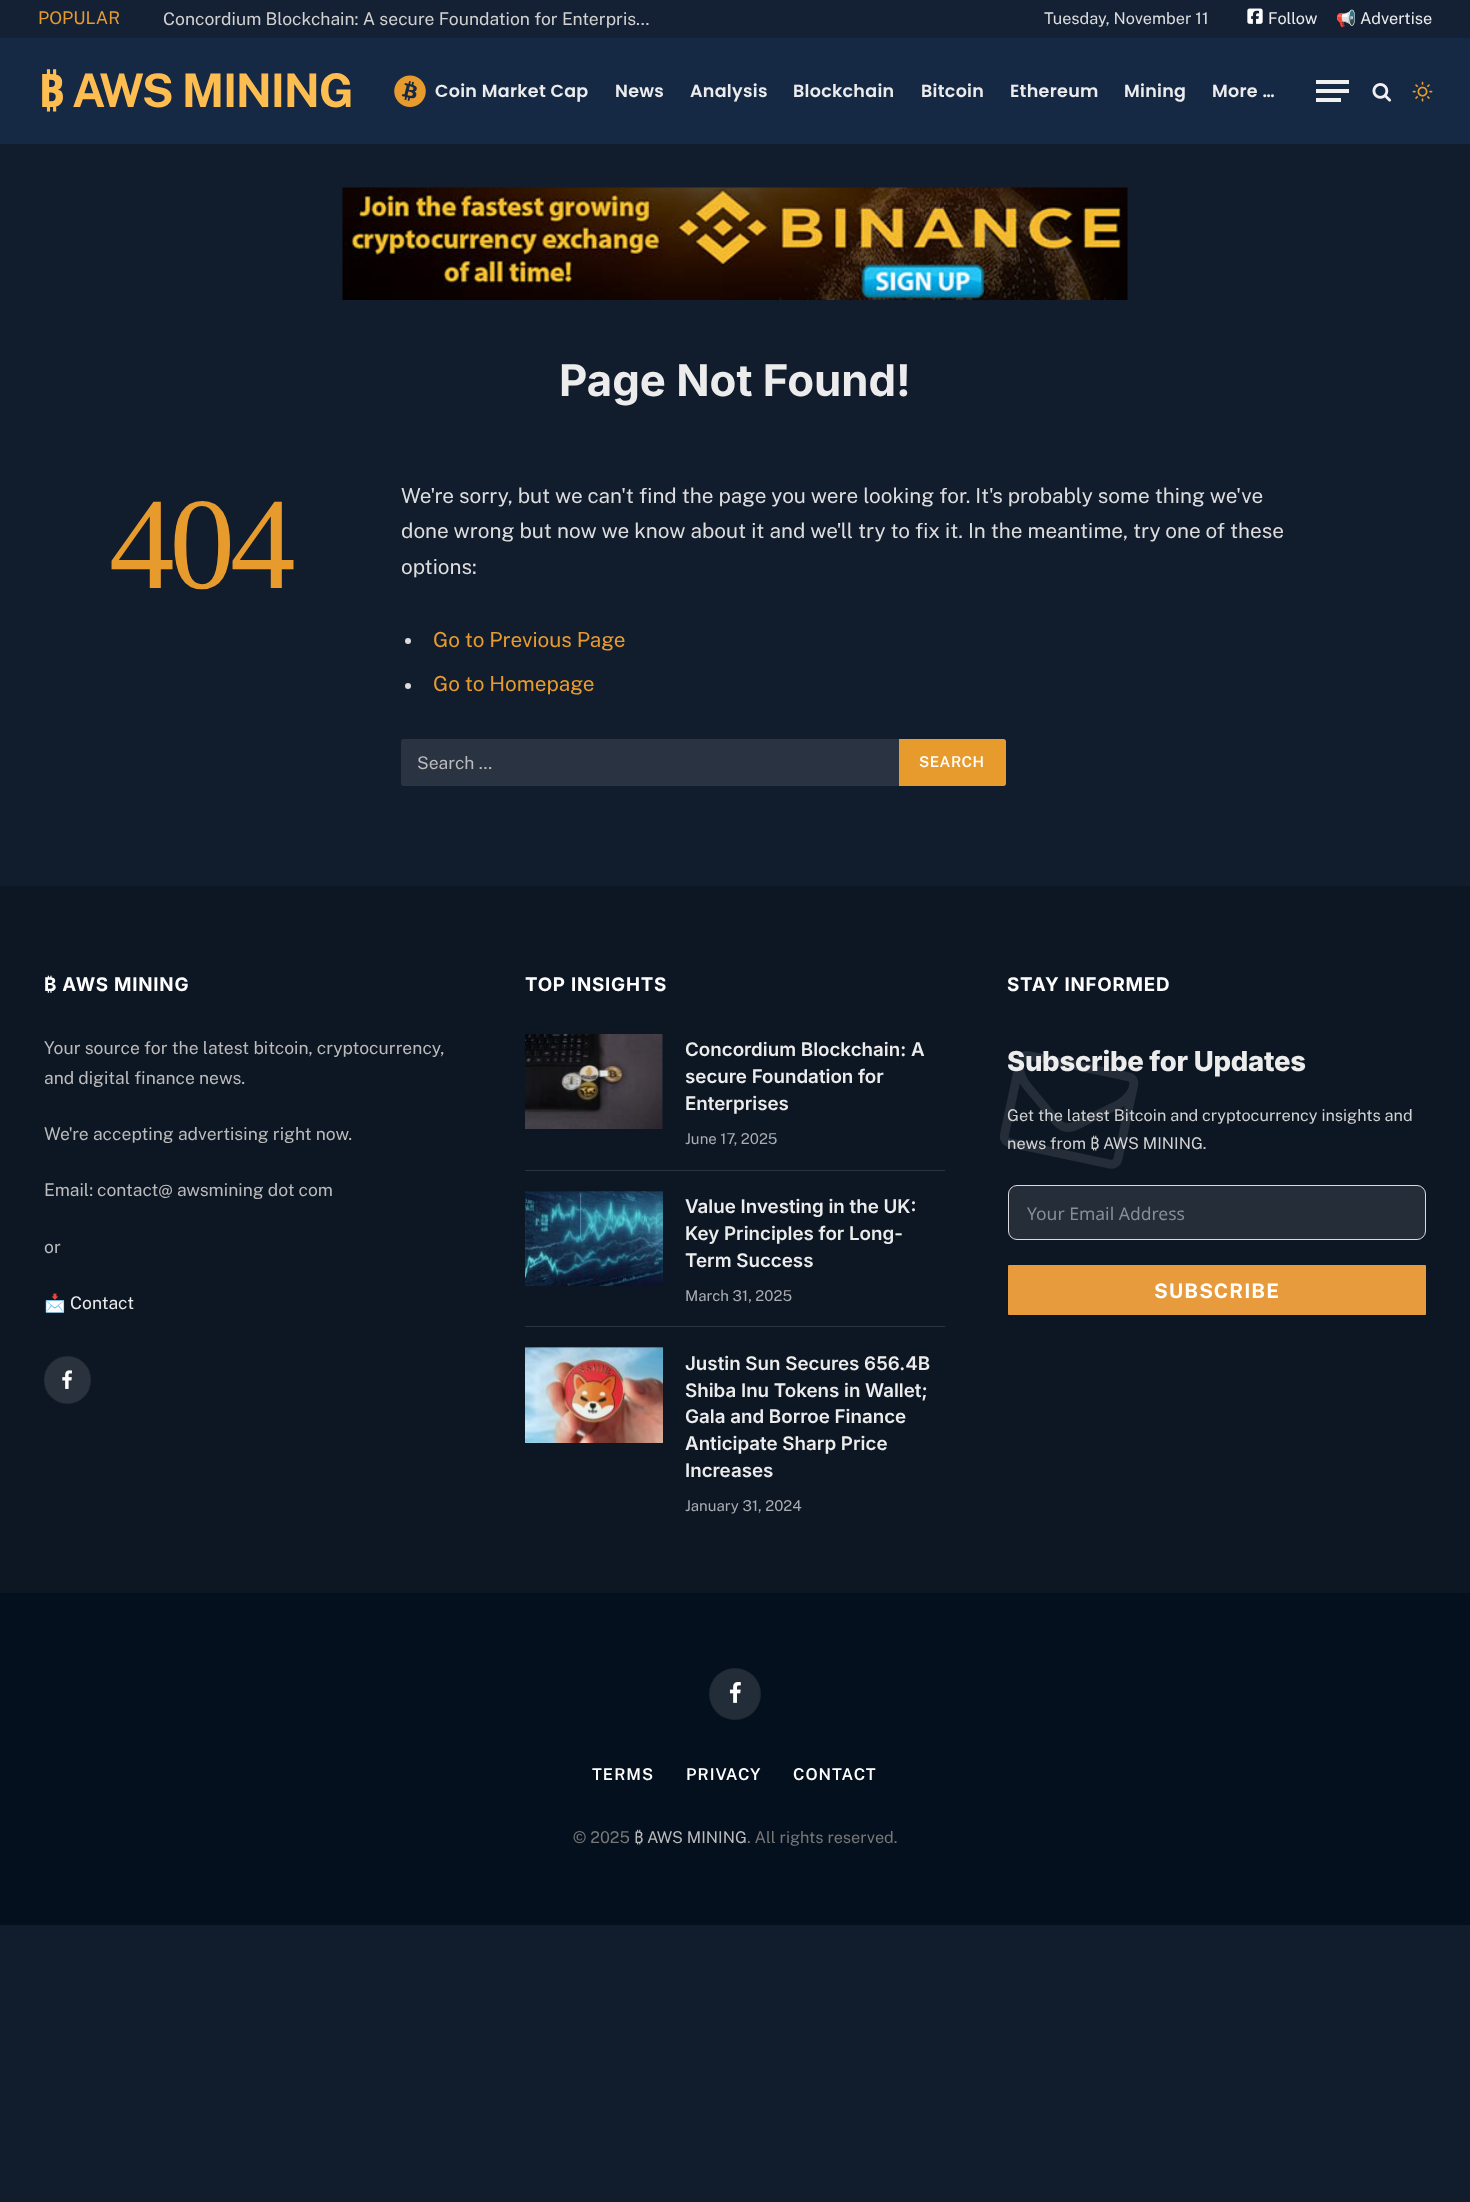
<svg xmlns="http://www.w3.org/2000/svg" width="1470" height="2202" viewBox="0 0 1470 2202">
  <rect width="100%" height="100%" fill="rgb(17,28,45)"/>
  <rect x="0" y="0" width="1470" height="38" fill="rgb(20,33,53)"/>
  <text x="38" y="24" font-family="Public Sans" font-size="17.5" fill="rgb(232,155,45)">POPULAR</text>
  <text x="163" y="25" font-family="Public Sans" font-size="17.5" fill="rgb(209,209,209)">Concordium Blockchain: A secure Foundation for Enterpris…</text>
  <text x="1044" y="24" font-family="Public Sans" font-size="16.25" fill="rgb(221,221,221)">Tuesday, November 11</text>
  <image x="1247" y="8" width="16" height="16" href="pic1.png"/>
  <text x="1268" y="24" font-family="Public Sans" font-size="16.25" fill="rgb(236,236,236)">Follow</text>
  <text x="1336" y="24" font-family="Noto Color Emoji" font-size="16.25" fill="rgb(236,236,236)">📢</text>
  <text x="1360" y="24" font-family="Public Sans" font-size="16.25" fill="rgb(236,236,236)">Advertise</text>
  <rect x="0" y="38" width="1470" height="106" fill="rgb(21,40,68)"/>
  <text x="38" y="107" font-family="Noto Sans" font-size="46.25" font-weight="bold" letter-spacing="-1.25" fill="rgb(254,189,81)">₿</text>
  <text x="72" y="107" font-family="Public Sans" font-size="46.25" font-weight="bold" letter-spacing="-1.25" fill="rgb(254,189,81)">AWS MINING</text>
  <image x="394" y="75" width="32" height="32" href="pic2.png"/>
  <g font-family="Poppins" font-size="17.5" font-weight="600" letter-spacing="0.3" fill="rgb(236,236,236)">
    <text x="435" y="97">Coin Market Cap</text>
    <text x="615" y="97">News</text>
    <text x="690" y="97">Analysis</text>
    <text x="793" y="97">Blockchain</text>
    <text x="921" y="97">Bitcoin</text>
    <text x="1010" y="97">Ethereum</text>
    <text x="1124" y="97">Mining</text>
    <text x="1212" y="97">More …</text>
  </g>
  <rect x="1316" y="98" width="25" height="4" fill="rgb(240,240,240)"/>
  <rect x="1316" y="80" width="33" height="4" fill="rgb(240,240,240)"/>
  <rect x="1316" y="89" width="33" height="4" fill="rgb(240,240,240)"/>
  <image x="1372" y="83" width="20" height="19" href="pic3.png"/>
  <image x="1412" y="81" width="21" height="21" href="pic4.png"/>
  <image x="342" y="187" width="786" height="113" href="pic5.png"/>
  <text x="559" y="396" font-family="Inter" font-size="43.75" font-weight="bold" fill="rgb(236,236,236)">Page Not Found!</text>
  <text x="109" y="588" font-family="Liberation Serif" font-size="131" letter-spacing="-5" fill="rgb(232,155,45)">404</text>
  <g font-family="Public Sans" font-size="20.75" fill="rgb(221,221,221)">
    <text>
      <tspan x="401" y="503">We're sorry, but we can't find the page you were looking for. It's probably some thing we've</tspan>
      <tspan x="401" y="538">done wrong but now we know about it and we'll try to fix it. In the meantime, try one of these</tspan>
      <tspan x="401" y="574">options:</tspan>
    </text>
  </g>
  <circle cx="408" cy="641" r="3" fill="rgb(221,221,221)"/>
  <text x="433" y="647" font-family="Public Sans" font-size="20.75" fill="rgb(232,155,45)">Go to Previous Page</text>
  <circle cx="408" cy="686" r="3" fill="rgb(221,221,221)"/>
  <text x="433" y="691" font-family="Public Sans" font-size="20.75" fill="rgb(232,155,45)">Go to Homepage</text>
  <rect x="401.5" y="739.5" width="499" height="46" rx="2" fill="rgb(41,51,66)" stroke="rgb(51,51,51)"/>
  <text x="417" y="769" font-family="Public Sans" font-size="17.5" fill="rgb(187,187,187)">Search …</text>
  <path d="M899 739H1003.5C1005 739 1006 740 1006 741.5V783.5C1006 785 1005 786 1003.5 786H899Z" fill="rgb(232,155,45)"/>
  <text x="919" y="767" font-family="Public Sans" font-size="15" font-weight="600" letter-spacing="0.5" fill="rgb(255,255,255)">SEARCH</text>
  <rect x="0" y="886" width="1470" height="707" fill="rgb(13,22,35)"/>
  <text x="44" y="991" font-family="Inter" font-size="18.75" font-weight="bold" letter-spacing="0.75" fill="rgb(255,255,255)">₿ AWS MINING</text>
  <g font-family="Public Sans" font-size="17.5" fill="rgb(187,187,187)">
    <text>
      <tspan x="44" y="1054">Your source for the latest bitcoin, cryptocurrency,</tspan>
      <tspan x="44" y="1084">and digital finance news.</tspan>
    </text>
    <text x="44" y="1140">We're accepting advertising right now.</text>
    <text x="44" y="1196">Email: contact@ awsmining dot com</text>
    <text x="44" y="1253">or</text>
  </g>
  <text x="44" y="1309" font-family="Noto Color Emoji" font-size="17.5" fill="rgb(236,236,236)">📩</text>
  <text x="70" y="1309" font-family="Public Sans" font-size="17.5" fill="rgb(236,236,236)">Contact</text>
  <rect x="44" y="1356" width="47" height="48" rx="23.5" fill="rgb(42,50,61)"/>
  <rect x="44.5" y="1356.5" width="46" height="47" rx="23" fill="none" stroke="rgba(0,0,0,0.09)"/>
  <image x="62" y="1370" width="10" height="19" href="pic6.png"/>
  <text x="525" y="991" font-family="Inter" font-size="18.75" font-weight="bold" letter-spacing="0.75" fill="rgb(255,255,255)">TOP INSIGHTS</text>
  <image x="525" y="1034" width="138" height="95" href="pic7.png"/>
  <g font-family="Inter" font-size="18.75" font-weight="600" fill="rgb(236,236,236)">
    <text>
      <tspan x="685" y="1056">Concordium Blockchain: A</tspan>
      <tspan x="685" y="1083">secure Foundation for</tspan>
      <tspan x="685" y="1110">Enterprises</tspan>
    </text>
  </g>
  <text x="685" y="1144" font-family="Public Sans" font-size="15" fill="rgb(170,173,178)">June 17, 2025</text>
  <rect x="525" y="1170" width="420" height="1" fill="rgb(44,52,64)"/>
  <image x="525" y="1191" width="138" height="95" href="pic8.png"/>
  <g font-family="Inter" font-size="18.75" font-weight="600" fill="rgb(236,236,236)">
    <text>
      <tspan x="685" y="1213">Value Investing in the UK:</tspan>
      <tspan x="685" y="1240">Key Principles for Long-</tspan>
      <tspan x="685" y="1267">Term Success</tspan>
    </text>
  </g>
  <text x="685" y="1301" font-family="Public Sans" font-size="15" fill="rgb(170,173,178)">March 31, 2025</text>
  <rect x="525" y="1326" width="420" height="1" fill="rgb(44,52,64)"/>
  <image x="525" y="1347" width="138" height="96" href="pic9.png"/>
  <g font-family="Inter" font-size="18.75" font-weight="600" fill="rgb(236,236,236)">
    <text>
      <tspan x="685" y="1370">Justin Sun Secures 656.4B</tspan>
      <tspan x="685" y="1397">Shiba Inu Tokens in Wallet;</tspan>
      <tspan x="685" y="1423">Gala and Borroe Finance</tspan>
      <tspan x="685" y="1450">Anticipate Sharp Price</tspan>
      <tspan x="685" y="1477">Increases</tspan>
    </text>
  </g>
  <text x="685" y="1511" font-family="Public Sans" font-size="15" fill="rgb(170,173,178)">January 31, 2024</text>
  <text x="1007" y="991" font-family="Inter" font-size="18.75" font-weight="bold" letter-spacing="0.75" fill="rgb(255,255,255)">STAY INFORMED</text>
  <text x="1007" y="1071" font-family="Inter" font-size="27.5" font-weight="800" letter-spacing="-0.25" fill="rgb(236,236,236)">Subscribe for Updates</text>
  <g font-family="Public Sans" font-size="16.25" fill="rgb(209,209,209)">
    <text>
      <tspan x="1007" y="1121">Get the latest Bitcoin and cryptocurrency insights and</tspan>
      <tspan x="1007" y="1149">news from</tspan>
    </text>
  </g>
  <text x="1090" y="1149" font-family="Noto Sans" font-size="16.25" fill="rgb(209,209,209)">₿</text>
  <text x="1103" y="1149" font-family="Public Sans" font-size="16.25" fill="rgb(209,209,209)">AWS MINING.</text>
  <image x="999" y="1051" width="140" height="118" href="pic10.png"/>
  <rect x="1008.5" y="1185.5" width="417" height="54" rx="8.5" fill="rgb(37,45,57)" stroke="rgb(218,219,221)"/>
  <text x="1027" y="1220" font-family="Noto Sans" font-size="17.5" fill="rgb(134,142,150)">Your Email Address</text>
  <rect x="1008" y="1265" width="418" height="50" rx="1" fill="rgb(231,155,61)"/>
  <text x="1154" y="1298" font-family="Public Sans" font-size="20" font-weight="bold" letter-spacing="1" fill="rgb(255,255,255)">SUBSCRIBE</text>
  <rect x="0" y="1593" width="1470" height="332" fill="rgb(5,16,30)"/>
  <circle cx="735" cy="1694" r="26" fill="rgb(35,45,57)"/>
  <circle cx="735" cy="1694" r="25.5" fill="none" stroke="rgba(0,0,0,0.09)"/>
  <image x="729" y="1682" width="12" height="21" href="pic11.png"/>
  <g font-family="Public Sans" font-size="16.25" font-weight="600" letter-spacing="1" fill="rgb(255,255,255)">
    <text x="592" y="1780">TERMS</text>
    <text x="686" y="1780">PRIVACY</text>
    <text x="793" y="1780">CONTACT</text>
  </g>
  <text x="573" y="1843" font-family="Public Sans" font-size="16.25" fill="rgb(119,119,119)">© 2025</text>
  <text x="634" y="1843" font-family="Noto Sans" font-size="16.25" fill="rgb(187,187,187)">₿</text>
  <text x="647" y="1843" font-family="Public Sans" font-size="16.25" fill="rgb(187,187,187)">AWS MINING</text>
  <text x="747" y="1843" font-family="Public Sans" font-size="16.25" fill="rgb(119,119,119)">. All rights reserved.</text>
</svg>
